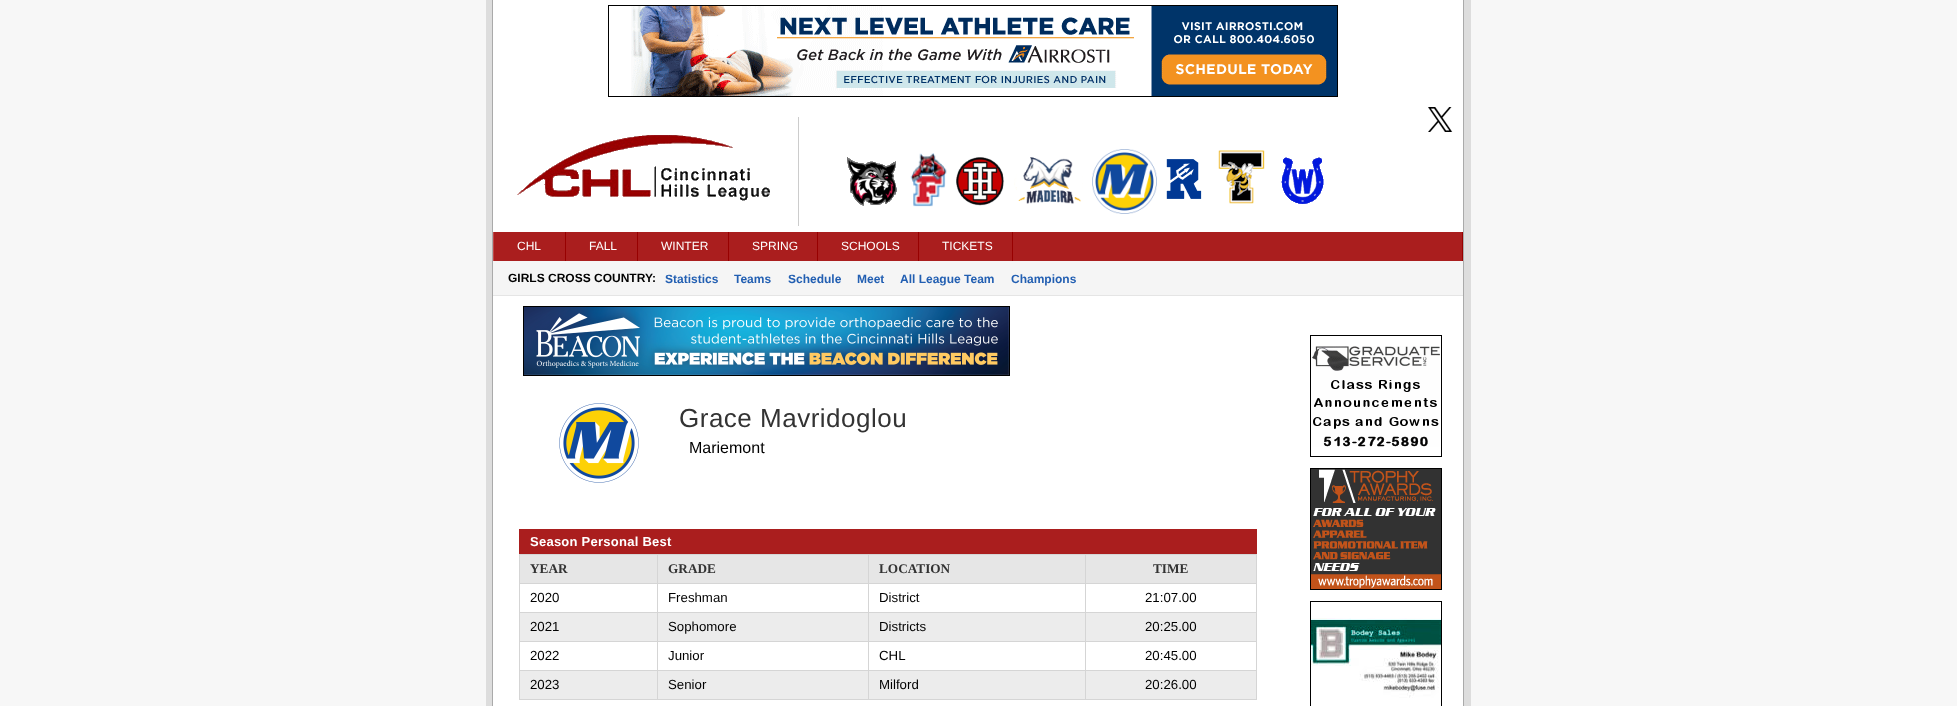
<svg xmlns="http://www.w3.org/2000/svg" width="1957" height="706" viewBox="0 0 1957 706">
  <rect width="100%" height="100%" fill="rgb(247,247,247)"/>
  <rect x="486" y="0" width="985" height="706" fill="rgb(221,221,221)"/>
  <rect x="493" y="0" width="970" height="706" fill="rgb(255,255,255)"/>
  <rect x="1463" y="0" width="1" height="706" fill="rgb(170,170,170)"/>
  <rect x="492" y="0" width="1" height="706" fill="rgb(170,170,170)"/>
  <rect x="608.5" y="5.5" width="729" height="91" fill="none" stroke="rgb(0,0,0)"/>
  <image x="631" y="6" width="706" height="90" href="pic1.png"/>
  <image x="517" y="135" width="253" height="66" href="pic2.png"/>
  <rect x="798" y="117" width="1" height="109" fill="rgb(204,204,204)"/>
  <image x="847" y="149" width="477" height="65" href="pic3.png"/>
  <image x="1428" y="107" width="25" height="25" href="pic4.png"/>
  <rect x="494" y="232" width="968" height="29" fill="rgb(170,30,30)"/>
  <rect x="565" y="232" width="1" height="30" fill="rgb(152,0,0)"/>
  <rect x="493" y="232" width="1" height="30" fill="rgb(192,71,71)"/>
  <text x="517" y="250" font-family="Liberation Sans" font-size="12" fill="rgb(255,255,255)">CHL</text>
  <rect x="637" y="232" width="1" height="30" fill="rgb(152,0,0)"/>
  <text x="589" y="250" font-family="Liberation Sans" font-size="12" fill="rgb(255,255,255)">FALL</text>
  <rect x="728" y="232" width="1" height="30" fill="rgb(152,0,0)"/>
  <text x="661" y="250" font-family="Liberation Sans" font-size="12" fill="rgb(255,255,255)">WINTER</text>
  <rect x="817" y="232" width="1" height="30" fill="rgb(152,0,0)"/>
  <text x="752" y="250" font-family="Liberation Sans" font-size="12" fill="rgb(255,255,255)">SPRING</text>
  <rect x="918" y="232" width="1" height="30" fill="rgb(152,0,0)"/>
  <text x="841" y="250" font-family="Liberation Sans" font-size="12" fill="rgb(255,255,255)">SCHOOLS</text>
  <rect x="1012" y="232" width="1" height="30" fill="rgb(152,0,0)"/>
  <text x="942" y="250" font-family="Liberation Sans" font-size="12" fill="rgb(255,255,255)">TICKETS</text>
  <rect x="1462" y="232" width="1" height="30" fill="rgb(152,0,0)"/>
  <rect x="493" y="261" width="970" height="34" fill="rgb(245,245,245)"/>
  <rect x="493" y="295" width="970" height="1" fill="rgb(229,229,229)"/>
  <text x="508" y="282" font-family="Liberation Sans" font-size="12" font-weight="bold" fill="rgb(0,0,0)">GIRLS CROSS COUNTRY:</text>
  <g font-family="Liberation Sans" font-size="12" font-weight="bold" fill="rgb(34,95,178)">
    <text x="665" y="283">Statistics</text>
    <text x="734" y="283">Teams</text>
    <text x="788" y="283">Schedule</text>
    <text x="857" y="283">Meet</text>
    <text x="900" y="283">All League Team</text>
    <text x="1011" y="283">Champions</text>
  </g>
  <rect x="523.5" y="306.5" width="486" height="69" fill="none" stroke="rgb(0,0,0)"/>
  <image x="524" y="307" width="485" height="68" href="pic5.png"/>
  <rect x="1310.5" y="335.5" width="131" height="121" fill="none" stroke="rgb(0,0,0)"/>
  <image x="1312" y="346" width="128" height="101" href="pic6.png"/>
  <rect x="1310.5" y="468.5" width="131" height="121" fill="none" stroke="rgb(0,0,0)"/>
  <image x="1311" y="469" width="130" height="120" href="pic7.png"/>
  <rect x="1310.5" y="601.5" width="131" height="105" fill="none" stroke="rgb(0,0,0)"/>
  <image x="1311" y="618" width="130" height="80" href="pic8.png"/>
  <image x="559" y="403" width="80" height="80" href="pic9.png"/>
  <text x="679" y="427" font-family="Liberation Sans" font-size="26" letter-spacing="0.5" fill="rgb(51,51,51)">Grace Mavridoglou</text>
  <text x="689" y="453" font-family="Liberation Sans" font-size="16" fill="rgb(0,0,0)">Mariemont</text>
  <rect x="519" y="699" width="738" height="1" fill="rgb(213,213,213)"/>
  <rect x="520" y="529" width="737" height="25" fill="rgb(170,30,30)"/>
  <rect x="519" y="529" width="1" height="26" fill="rgb(170,30,30)"/>
  <text x="530" y="546" font-family="Liberation Sans" font-size="13" font-weight="bold" letter-spacing="0.25" fill="rgb(255,255,255)">Season Personal Best</text>
  <rect x="520" y="555" width="137" height="28" fill="rgb(230,230,230)"/>
  <rect x="1085" y="554" width="172" height="1" fill="rgb(213,213,213)"/>
  <rect x="1085" y="583" width="172" height="1" fill="rgb(213,213,213)"/>
  <rect x="1085" y="612" width="172" height="1" fill="rgb(213,213,213)"/>
  <rect x="520" y="613" width="736" height="28" fill="rgb(236,236,236)"/>
  <rect x="1085" y="641" width="172" height="1" fill="rgb(213,213,213)"/>
  <rect x="1085" y="670" width="172" height="1" fill="rgb(213,213,213)"/>
  <rect x="520" y="671" width="736" height="28" fill="rgb(236,236,236)"/>
  <rect x="1085" y="670" width="1" height="30" fill="rgb(213,213,213)"/>
  <rect x="868" y="670" width="218" height="1" fill="rgb(213,213,213)"/>
  <rect x="1085" y="641" width="1" height="30" fill="rgb(213,213,213)"/>
  <rect x="868" y="641" width="218" height="1" fill="rgb(213,213,213)"/>
  <rect x="1085" y="612" width="1" height="30" fill="rgb(213,213,213)"/>
  <rect x="868" y="612" width="218" height="1" fill="rgb(213,213,213)"/>
  <rect x="1085" y="583" width="1" height="30" fill="rgb(213,213,213)"/>
  <rect x="868" y="583" width="218" height="1" fill="rgb(213,213,213)"/>
  <rect x="1085" y="554" width="1" height="30" fill="rgb(213,213,213)"/>
  <rect x="868" y="554" width="218" height="1" fill="rgb(213,213,213)"/>
  <rect x="868" y="670" width="1" height="30" fill="rgb(213,213,213)"/>
  <rect x="657" y="670" width="212" height="1" fill="rgb(213,213,213)"/>
  <rect x="868" y="641" width="1" height="30" fill="rgb(213,213,213)"/>
  <rect x="657" y="641" width="212" height="1" fill="rgb(213,213,213)"/>
  <rect x="868" y="612" width="1" height="30" fill="rgb(213,213,213)"/>
  <rect x="657" y="612" width="212" height="1" fill="rgb(213,213,213)"/>
  <rect x="868" y="583" width="1" height="30" fill="rgb(213,213,213)"/>
  <rect x="657" y="583" width="212" height="1" fill="rgb(213,213,213)"/>
  <rect x="868" y="554" width="1" height="30" fill="rgb(213,213,213)"/>
  <rect x="657" y="554" width="212" height="1" fill="rgb(213,213,213)"/>
  <rect x="657" y="670" width="1" height="30" fill="rgb(213,213,213)"/>
  <rect x="519" y="670" width="139" height="1" fill="rgb(213,213,213)"/>
  <rect x="657" y="641" width="1" height="30" fill="rgb(213,213,213)"/>
  <rect x="519" y="641" width="139" height="1" fill="rgb(213,213,213)"/>
  <rect x="657" y="612" width="1" height="30" fill="rgb(213,213,213)"/>
  <rect x="519" y="612" width="139" height="1" fill="rgb(213,213,213)"/>
  <rect x="657" y="583" width="1" height="30" fill="rgb(213,213,213)"/>
  <rect x="519" y="583" width="139" height="1" fill="rgb(213,213,213)"/>
  <rect x="657" y="554" width="1" height="30" fill="rgb(213,213,213)"/>
  <rect x="519" y="554" width="139" height="1" fill="rgb(213,213,213)"/>
  <rect x="519" y="670" width="1" height="30" fill="rgb(213,213,213)"/>
  <rect x="519" y="641" width="1" height="30" fill="rgb(213,213,213)"/>
  <rect x="519" y="612" width="1" height="30" fill="rgb(213,213,213)"/>
  <rect x="519" y="583" width="1" height="30" fill="rgb(213,213,213)"/>
  <rect x="519" y="554" width="1" height="30" fill="rgb(213,213,213)"/>
  <text x="530" y="573" font-family="Liberation Serif" font-size="13.25" font-weight="bold" fill="rgb(51,51,51)">YEAR</text>
  <rect x="658" y="555" width="210" height="28" fill="rgb(230,230,230)"/>
  <text x="668" y="573" font-family="Liberation Serif" font-size="13.25" font-weight="bold" fill="rgb(51,51,51)">GRADE</text>
  <rect x="869" y="555" width="216" height="28" fill="rgb(230,230,230)"/>
  <text x="879" y="573" font-family="Liberation Serif" font-size="13.25" font-weight="bold" fill="rgb(51,51,51)">LOCATION</text>
  <rect x="1086" y="555" width="170" height="28" fill="rgb(230,230,230)"/>
  <rect x="1256" y="670" width="1" height="30" fill="rgb(213,213,213)"/>
  <rect x="1256" y="641" width="1" height="30" fill="rgb(213,213,213)"/>
  <rect x="1256" y="612" width="1" height="30" fill="rgb(213,213,213)"/>
  <rect x="1256" y="583" width="1" height="30" fill="rgb(213,213,213)"/>
  <rect x="1256" y="554" width="1" height="30" fill="rgb(213,213,213)"/>
  <text x="1153" y="573" font-family="Liberation Serif" font-size="13.25" font-weight="bold" fill="rgb(51,51,51)">TIME</text>
  <g font-family="Liberation Sans" font-size="13.25" fill="rgb(0,0,0)">
    <text x="530" y="602">2020</text>
    <text x="668" y="602">Freshman</text>
    <text x="879" y="602">District</text>
    <text x="1145" y="602">21:07.00</text>
    <text x="530" y="631">2021</text>
    <text x="668" y="631">Sophomore</text>
    <text x="879" y="631">Districts</text>
    <text x="1145" y="631">20:25.00</text>
    <text x="530" y="660">2022</text>
    <text x="668" y="660">Junior</text>
    <text x="879" y="660">CHL</text>
    <text x="1145" y="660">20:45.00</text>
    <text x="530" y="689">2023</text>
    <text x="668" y="689">Senior</text>
    <text x="879" y="689">Milford</text>
    <text x="1145" y="689">20:26.00</text>
  </g>
</svg>
